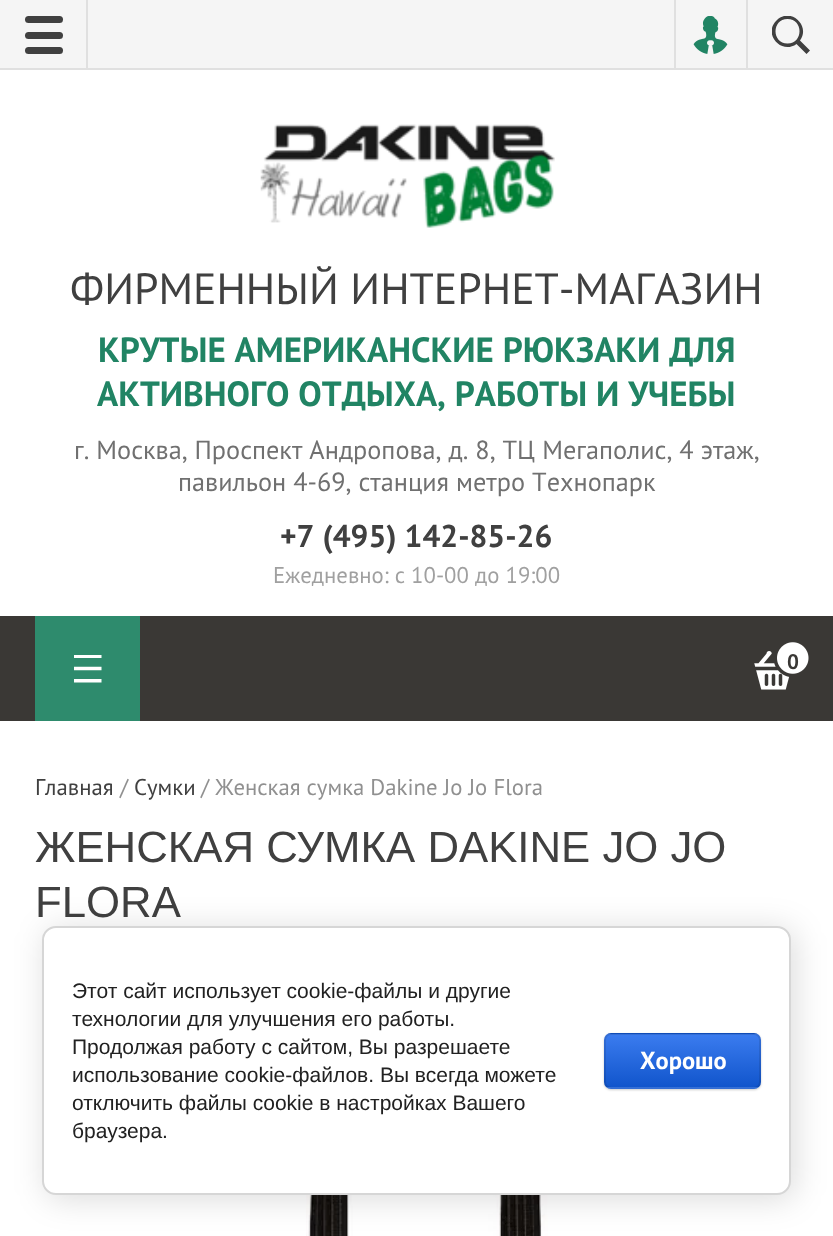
<svg xmlns="http://www.w3.org/2000/svg" width="833" height="1236" viewBox="0 0 833 1236">
  <defs>
    <clipPath id="clip1"><rect x="772" y="16" width="38" height="38"/></clipPath>
    <clipPath id="clip2"><rect x="604" y="1033" width="157" height="56" rx="7"/></clipPath>
    <linearGradient id="g1" gradientUnits="userSpaceOnUse" x1="683" y1="982" x2="683" y2="1034"><stop offset="0" stop-color="rgb(59,124,239)"/><stop offset="1" stop-color="rgb(17,85,204)"/></linearGradient>
    <linearGradient id="g2" gradientUnits="userSpaceOnUse" x1="683" y1="1034" x2="683" y2="1087"><stop offset="0" stop-color="rgb(59,124,239)"/><stop offset="1" stop-color="rgb(17,85,204)"/></linearGradient>
    <linearGradient id="g3" gradientUnits="userSpaceOnUse" x1="683" y1="1087" x2="683" y2="1139"><stop offset="0" stop-color="rgb(59,124,239)"/><stop offset="1" stop-color="rgb(17,85,204)"/></linearGradient>
  </defs>
  <rect width="100%" height="100%" fill="rgb(255,255,255)"/>
  <rect x="0" y="0" width="833" height="68" fill="rgb(245,245,245)"/>
  <rect x="0" y="68" width="833" height="2" fill="rgb(224,224,224)"/>
  <rect x="86" y="0" width="2" height="70" fill="rgb(224,224,224)"/>
  <rect x="25" y="16" width="38" height="7" rx="3.5" fill="rgb(64,64,64)"/>
  <rect x="25" y="32" width="38" height="7" rx="3.5" fill="rgb(64,64,64)"/>
  <rect x="25" y="47" width="38" height="7" rx="3.5" fill="rgb(64,64,64)"/>
  <image x="693" y="16" width="35" height="38" href="pic1.png"/>
  <rect x="674" y="0" width="2" height="70" fill="rgb(224,224,224)"/>
  <g clip-path="url(#clip1)">
    <path d="M810 50.5L806.5 54L796.5 44C781.5 55 762.5 34 776.5 20.5C790 6.5 811 25.5 800 40.5ZM787.5 19C771.5 19 771.5 43.5 787.5 43.5C803.5 43.5 803.5 19 787.5 19Z" fill="rgb(64,64,64)" fill-rule="evenodd"/>
  </g>
  <rect x="746" y="0" width="2" height="70" fill="rgb(224,224,224)"/>
  <image x="260" y="124" width="295" height="104" href="pic2.png"/>
  <text x="70" y="304" font-family="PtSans" font-size="43.75" fill="rgb(64,64,64)">ФИРМЕННЫЙ ИНТЕРНЕТ-МАГАЗИН</text>
  <g font-family="PtSans" font-size="35" font-weight="bold" fill="rgb(33,132,100)">
    <text x="98" y="362">КРУТЫЕ АМЕРИКАНСКИЕ РЮКЗАКИ ДЛЯ</text>
    <text x="97" y="406">АКТИВНОГО ОТДЫХА, РАБОТЫ И УЧЕБЫ</text>
  </g>
  <g font-family="PtSans" font-size="26.25" fill="rgb(112,112,112)">
    <text x="74" y="459">г. Москва, Проспект Андропова, д. 8, ТЦ Мегаполис, 4 этаж,</text>
    <text x="178" y="491">павильон 4-69, станция метро Технопарк</text>
  </g>
  <text x="280" y="547" font-family="PtSans" font-size="31.5" font-weight="bold" fill="rgb(64,64,64)">+7 (495) 142-85-26</text>
  <text x="273" y="583" font-family="PtSans" font-size="22.75" fill="rgb(160,160,160)">Ежедневно: с 10-00 до 19:00</text>
  <rect x="0" y="616" width="833" height="105" fill="rgb(58,56,53)"/>
  <rect x="35" y="616" width="105" height="105" fill="rgb(46,139,109)"/>
  <image x="74" y="655" width="28" height="28" href="pic3.png"/>
  <image x="754" y="642" width="55" height="48" href="pic4.png"/>
  <text x="787" y="669" font-family="PtSans" font-size="21" font-weight="bold" fill="rgb(58,56,53)">0</text>
  <text x="35" y="795" font-family="PtSans" font-size="22.75" fill="rgb(64,64,64)">Главная</text>
  <text x="120" y="795" font-family="PtSans" font-size="22.75" fill="rgb(144,144,144)">/</text>
  <text x="134" y="795" font-family="PtSans" font-size="22.75" fill="rgb(64,64,64)">Сумки</text>
  <text x="201" y="795" font-family="PtSans" font-size="22.75" fill="rgb(144,144,144)">/ Женская сумка Dakine Jo Jo Flora</text>
  <g font-family="Liberation Sans" font-size="43.75" fill="rgb(64,64,64)">
    <text>
      <tspan x="35" y="862">ЖЕНСКАЯ СУМКА DAKINE JO JO</tspan>
      <tspan x="35" y="917">FLORA</tspan>
    </text>
  </g>
  <image x="306" y="1195" width="242" height="41" href="pic5.png"/>
  <rect x="46" y="929" width="749" height="270" rx="14" fill="rgba(0,0,0,0.14)" filter="blur(16px)"/>
  <rect x="43" y="927" width="747" height="267" rx="13" fill="rgb(255,255,255)" stroke="rgb(214,214,214)" stroke-width="2"/>
  <g font-family="Liberation Sans" font-size="21" fill="rgb(33,33,33)">
    <text>
      <tspan x="72" y="998">Этот сайт использует cookie-файлы и другие</tspan>
      <tspan x="72" y="1026">технологии для улучшения его работы.</tspan>
      <tspan x="72" y="1054">Продолжая работу с сайтом, Вы разрешаете</tspan>
      <tspan x="72" y="1082">использование cookie-файлов. Вы всегда можете</tspan>
      <tspan x="72" y="1110">отключить файлы cookie в настройках Вашего</tspan>
      <tspan x="72" y="1138">браузера.</tspan>
    </text>
  </g>
  <rect x="604" y="1034" width="157" height="56" rx="7" fill="rgba(0,0,0,0.2)" filter="blur(1px)"/>
  <g clip-path="url(#clip2)">
    <rect x="604" y="1033" width="157" height="1" fill="url(#g1)"/>
    <rect x="604" y="1034" width="157" height="53" fill="url(#g2)"/>
    <rect x="604" y="1087" width="157" height="2" fill="url(#g3)"/>
  </g>
  <rect x="605" y="1034" width="155" height="54" rx="6" fill="none" stroke="rgba(0,0,0,0.1)" stroke-width="2"/>
  <text x="640" y="1069" font-family="PtSans" font-size="24.5" font-weight="bold" fill="rgb(255,255,255)">Хорошо</text>
</svg>
